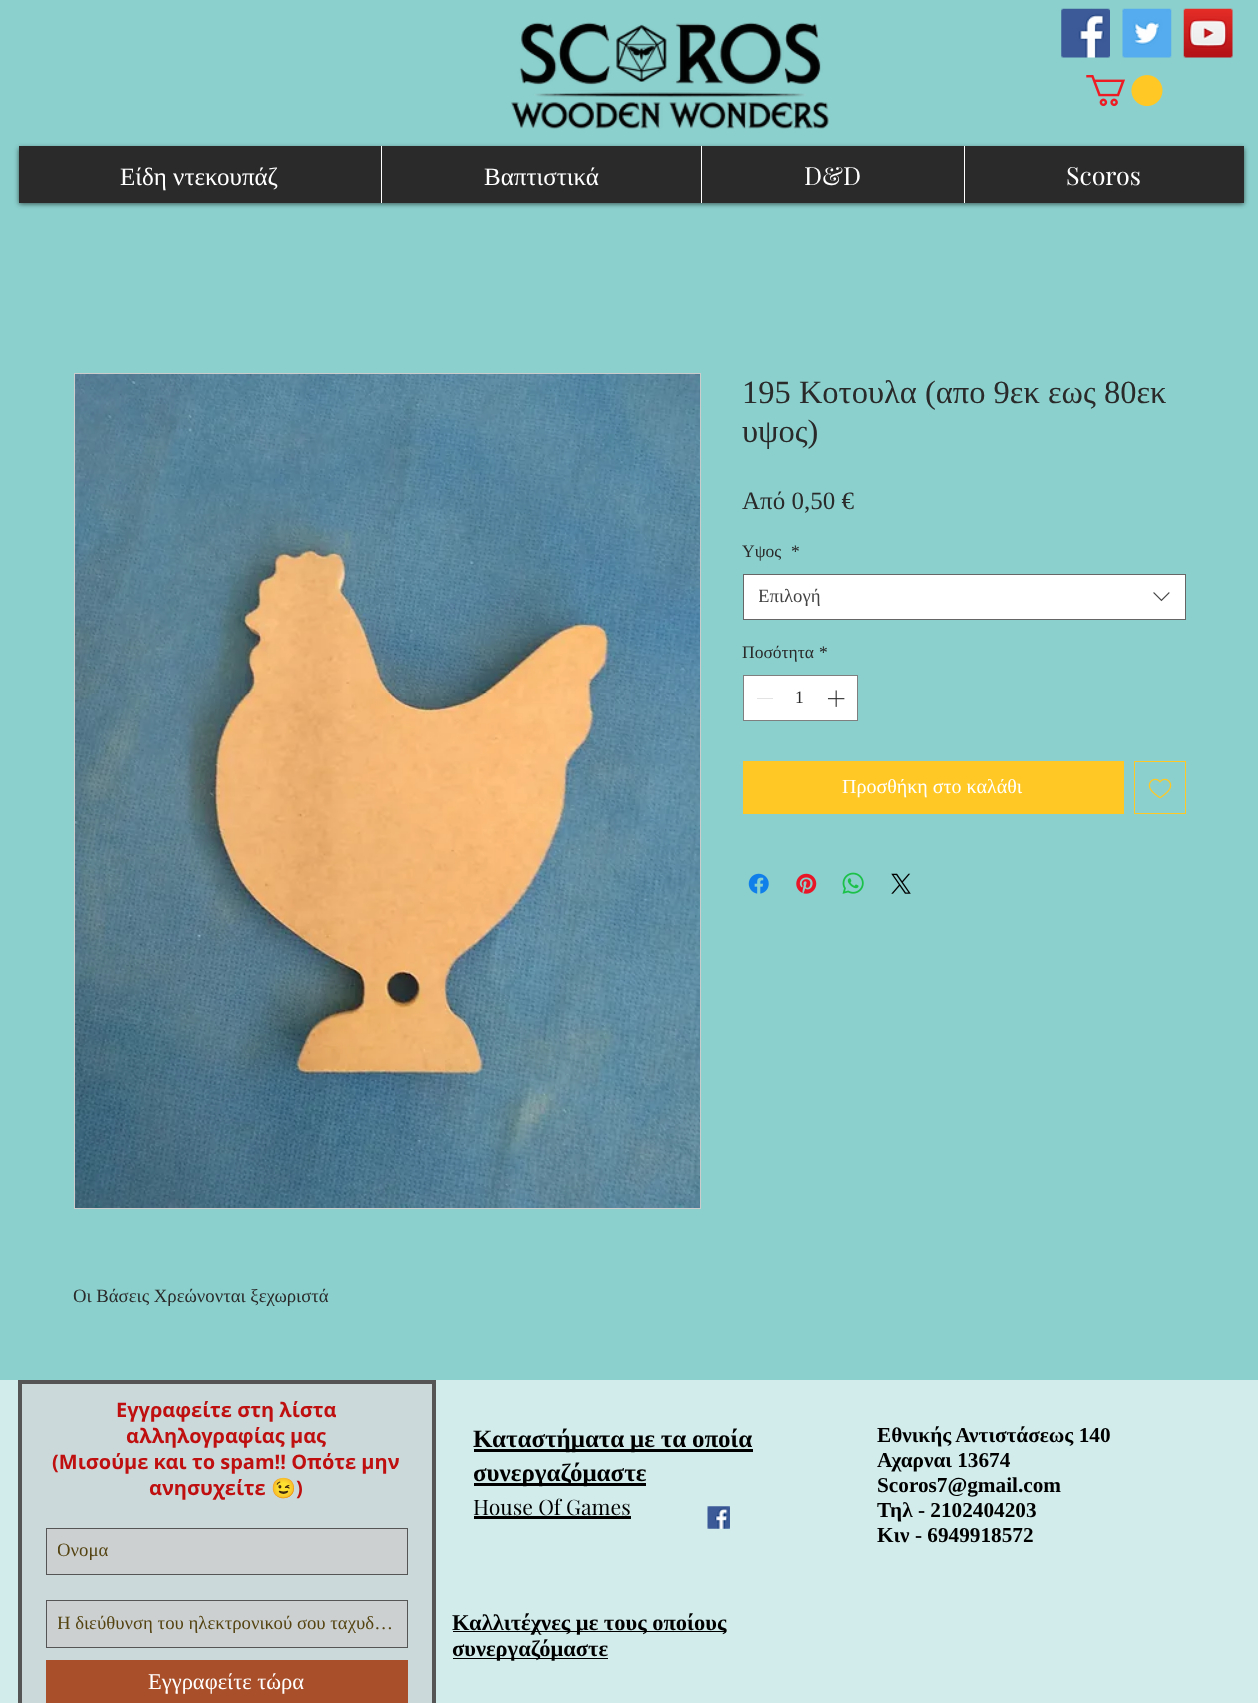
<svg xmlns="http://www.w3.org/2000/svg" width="1258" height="1703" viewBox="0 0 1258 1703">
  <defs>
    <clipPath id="clip1"><rect x="759" y="585" width="384" height="24"/></clipPath>
    <clipPath id="clip2"><rect x="58" y="1540" width="345" height="21"/></clipPath>
    <clipPath id="clip3"><rect x="58" y="1613" width="345" height="21"/></clipPath>
  </defs>
  <rect width="100%" height="100%" fill="rgb(139,208,205)"/>
  <image x="616" y="24" width="51" height="58" href="pic2.png"/>
  <image x="510" y="22" width="319" height="107" href="pic1.png"/>
  <image x="1061" y="8" width="49" height="50" href="pic3.png"/>
  <image x="1122" y="8" width="50" height="50" href="pic4.png"/>
  <image x="1183" y="8" width="50" height="50" href="pic5.png"/>
  <image x="1086" y="75" width="77" height="32" href="pic6.png"/>
  <rect x="19" y="148" width="1225" height="56" fill="rgba(0,0,0,0.6)" filter="blur(2.5px)"/>
  <rect x="19" y="146" width="1225" height="57" fill="rgb(42,42,42)"/>
  <text x="120" y="185" font-family="Liberation Serif" font-size="25" fill="rgb(255,255,255)">Είδη ντεκουπάζ</text>
  <rect x="381" y="146" width="1" height="57" fill="rgb(255,255,255)"/>
  <text x="484" y="185" font-family="Liberation Serif" font-size="25" fill="rgb(255,255,255)">Βαπτιστικά</text>
  <rect x="701" y="146" width="1" height="57" fill="rgb(255,255,255)"/>
  <text x="804" y="185" font-family="Playfair Display" font-size="25" fill="rgb(255,255,255)">D&amp;D</text>
  <rect x="964" y="146" width="1" height="57" fill="rgb(255,255,255)"/>
  <text x="1066" y="185" font-family="Playfair Display" font-size="25" fill="rgb(255,255,255)">Scoros</text>
  <g font-family="Liberation Serif" font-size="32.5" fill="rgb(42,42,42)">
    <text>
      <tspan x="742" y="403">195 Κοτουλα (απο 9εκ εως 80εκ</tspan>
      <tspan x="742" y="442">υψος)</tspan>
    </text>
  </g>
  <text x="742" y="509" font-family="Liberation Serif" font-size="25" fill="rgb(42,42,42)">Από 0,50 €</text>
  <g font-family="Liberation Serif" font-size="17.5" fill="rgb(42,42,42)">
    <text x="742" y="557">Υψος</text>
    <text x="791" y="557">*</text>
  </g>
  <rect x="743.5" y="574.5" width="442" height="45" fill="rgb(255,255,255)" stroke="rgb(102,102,102)"/>
  <g clip-path="url(#clip1)">
    <text x="758" y="602" font-family="Liberation Serif" font-size="18.75" fill="rgb(68,68,68)">Επιλογή</text>
  </g>
  <image x="1153" y="592" width="17" height="10" href="pic7.png"/>
  <g font-family="Liberation Serif" font-size="17.5" fill="rgb(42,42,42)">
    <text x="742" y="658">Ποσότητα</text>
    <text x="819" y="658">*</text>
  </g>
  <rect x="743.5" y="675.5" width="114" height="45" fill="rgb(255,255,255)" stroke="rgb(127,127,127)"/>
  <rect x="757" y="698" width="16" height="1" fill="rgb(227,227,227)"/>
  <text x="795" y="703" font-family="Liberation Serif" font-size="17.5" fill="rgb(42,42,42)">1</text>
  <image x="827" y="690" width="18" height="17" href="pic8.png"/>
  <rect x="743" y="761" width="381" height="53" fill="rgb(255,200,36)"/>
  <text x="842" y="793" font-family="Liberation Serif" font-size="20" fill="rgb(255,255,255)">Προσθήκη στο καλάθι</text>
  <rect x="1134.5" y="761.5" width="51" height="52" fill="none" stroke="rgb(255,200,36)"/>
  <image x="1148" y="778" width="24" height="21" href="pic9.png"/>
  <image x="748" y="873" width="21" height="21" href="pic10.png"/>
  <image x="796" y="873" width="21" height="21" href="pic11.png"/>
  <image x="842" y="872" width="22" height="22" href="pic12.png"/>
  <image x="891" y="873" width="20" height="21" href="pic13.png"/>
  <rect x="74.5" y="373.5" width="626" height="835" fill="none" stroke="rgb(204,204,204)"/>
  <image x="75" y="374" width="625" height="834" href="pic14.png"/>
  <text x="73" y="1302" font-family="Liberation Serif" font-size="18.75" fill="rgb(42,42,42)">Οι Βάσεις Χρεώνονται ξεχωριστά</text>
  <rect x="0" y="1380" width="1258" height="323" fill="rgb(209,236,235)"/>
  <rect x="20" y="1382" width="414" height="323" fill="rgb(204,217,219)" stroke="rgb(85,85,85)" stroke-width="4"/>
  <g font-family="Open Sans" font-size="20" font-weight="bold" fill="rgb(191,15,15)">
    <text x="116" y="1417">Εγγραφείτε στη λίστα</text>
    <text x="126" y="1443">αλληλογραφίας μας</text>
    <text x="52" y="1469">(Μισούμε και το spam!! Οπότε μην</text>
    <text x="149" y="1495">ανησυχείτε</text>
  </g>
  <text x="271" y="1495" font-family="Noto Color Emoji" font-size="20" font-weight="bold" fill="rgb(191,15,15)">😉</text>
  <text x="296" y="1495" font-family="Open Sans" font-size="20" font-weight="bold" fill="rgb(191,15,15)">)</text>
  <rect x="46.5" y="1528.5" width="361" height="46" fill="rgb(204,208,209)" stroke="rgb(85,85,85)"/>
  <g clip-path="url(#clip2)">
    <text x="57" y="1556" font-family="Liberation Serif" font-size="18.75" fill="rgb(85,68,18)">Ονομα</text>
  </g>
  <rect x="46.5" y="1600.5" width="361" height="47" fill="rgb(204,208,209)" stroke="rgb(85,85,85)"/>
  <g clip-path="url(#clip3)">
    <text x="57" y="1629" font-family="Liberation Serif" font-size="18.75" fill="rgb(85,68,18)">Η διεύθυνση του ηλεκτρονικού σου ταχυδ…</text>
  </g>
  <rect x="46" y="1660" width="362" height="43" fill="rgb(169,79,42)"/>
  <text x="148" y="1689" font-family="Liberation Serif" font-size="22.5" fill="rgb(255,255,255)">Εγγραφείτε τώρα</text>
  <rect x="474" y="1449" width="279" height="3" fill="rgb(0,0,0)"/>
  <text x="473" y="1447" word-spacing="-0.5" font-family="Liberation Serif" font-size="25" font-weight="bold" fill="rgb(0,0,0)">Καταστήματα με τα οποία</text>
  <rect x="474" y="1483" width="172" height="3" fill="rgb(0,0,0)"/>
  <text x="473" y="1481" font-family="Liberation Serif" font-size="25" font-weight="bold" fill="rgb(0,0,0)">συνεργαζόμαστε</text>
  <text x="473" y="1515" font-family="Playfair Display" font-size="21.25" fill="rgb(0,0,0)">House Of Games</text>
  <rect x="474" y="1516" width="157" height="3" fill="rgb(0,0,0)"/>
  <g font-family="Liberation Serif" font-size="21.25" font-weight="bold" fill="rgb(0,0,0)">
    <text>
      <tspan x="877" y="1442">Εθνικής Αντιστάσεως 140</tspan>
      <tspan x="877" y="1467">Αχαρναι 13674</tspan>
      <tspan x="877" y="1492">Scoros7@gmail.com</tspan>
      <tspan x="877" y="1517">Τηλ - 2102404203</tspan>
      <tspan x="877" y="1542">Κιν - 6949918572</tspan>
    </text>
  </g>
  <image x="707" y="1506" width="23" height="23" href="pic15.png"/>
  <rect x="453" y="1631" width="273" height="1" fill="rgb(0,0,0)"/>
  <text x="452" y="1630" font-family="Liberation Serif" font-size="22.5" font-weight="bold" fill="rgb(0,0,0)">Καλλιτέχνες με τους οποίους</text>
  <rect x="453" y="1658" width="155" height="1" fill="rgb(0,0,0)"/>
  <text x="452" y="1656" font-family="Liberation Serif" font-size="22.5" font-weight="bold" fill="rgb(0,0,0)">συνεργαζόμαστε</text>
</svg>
